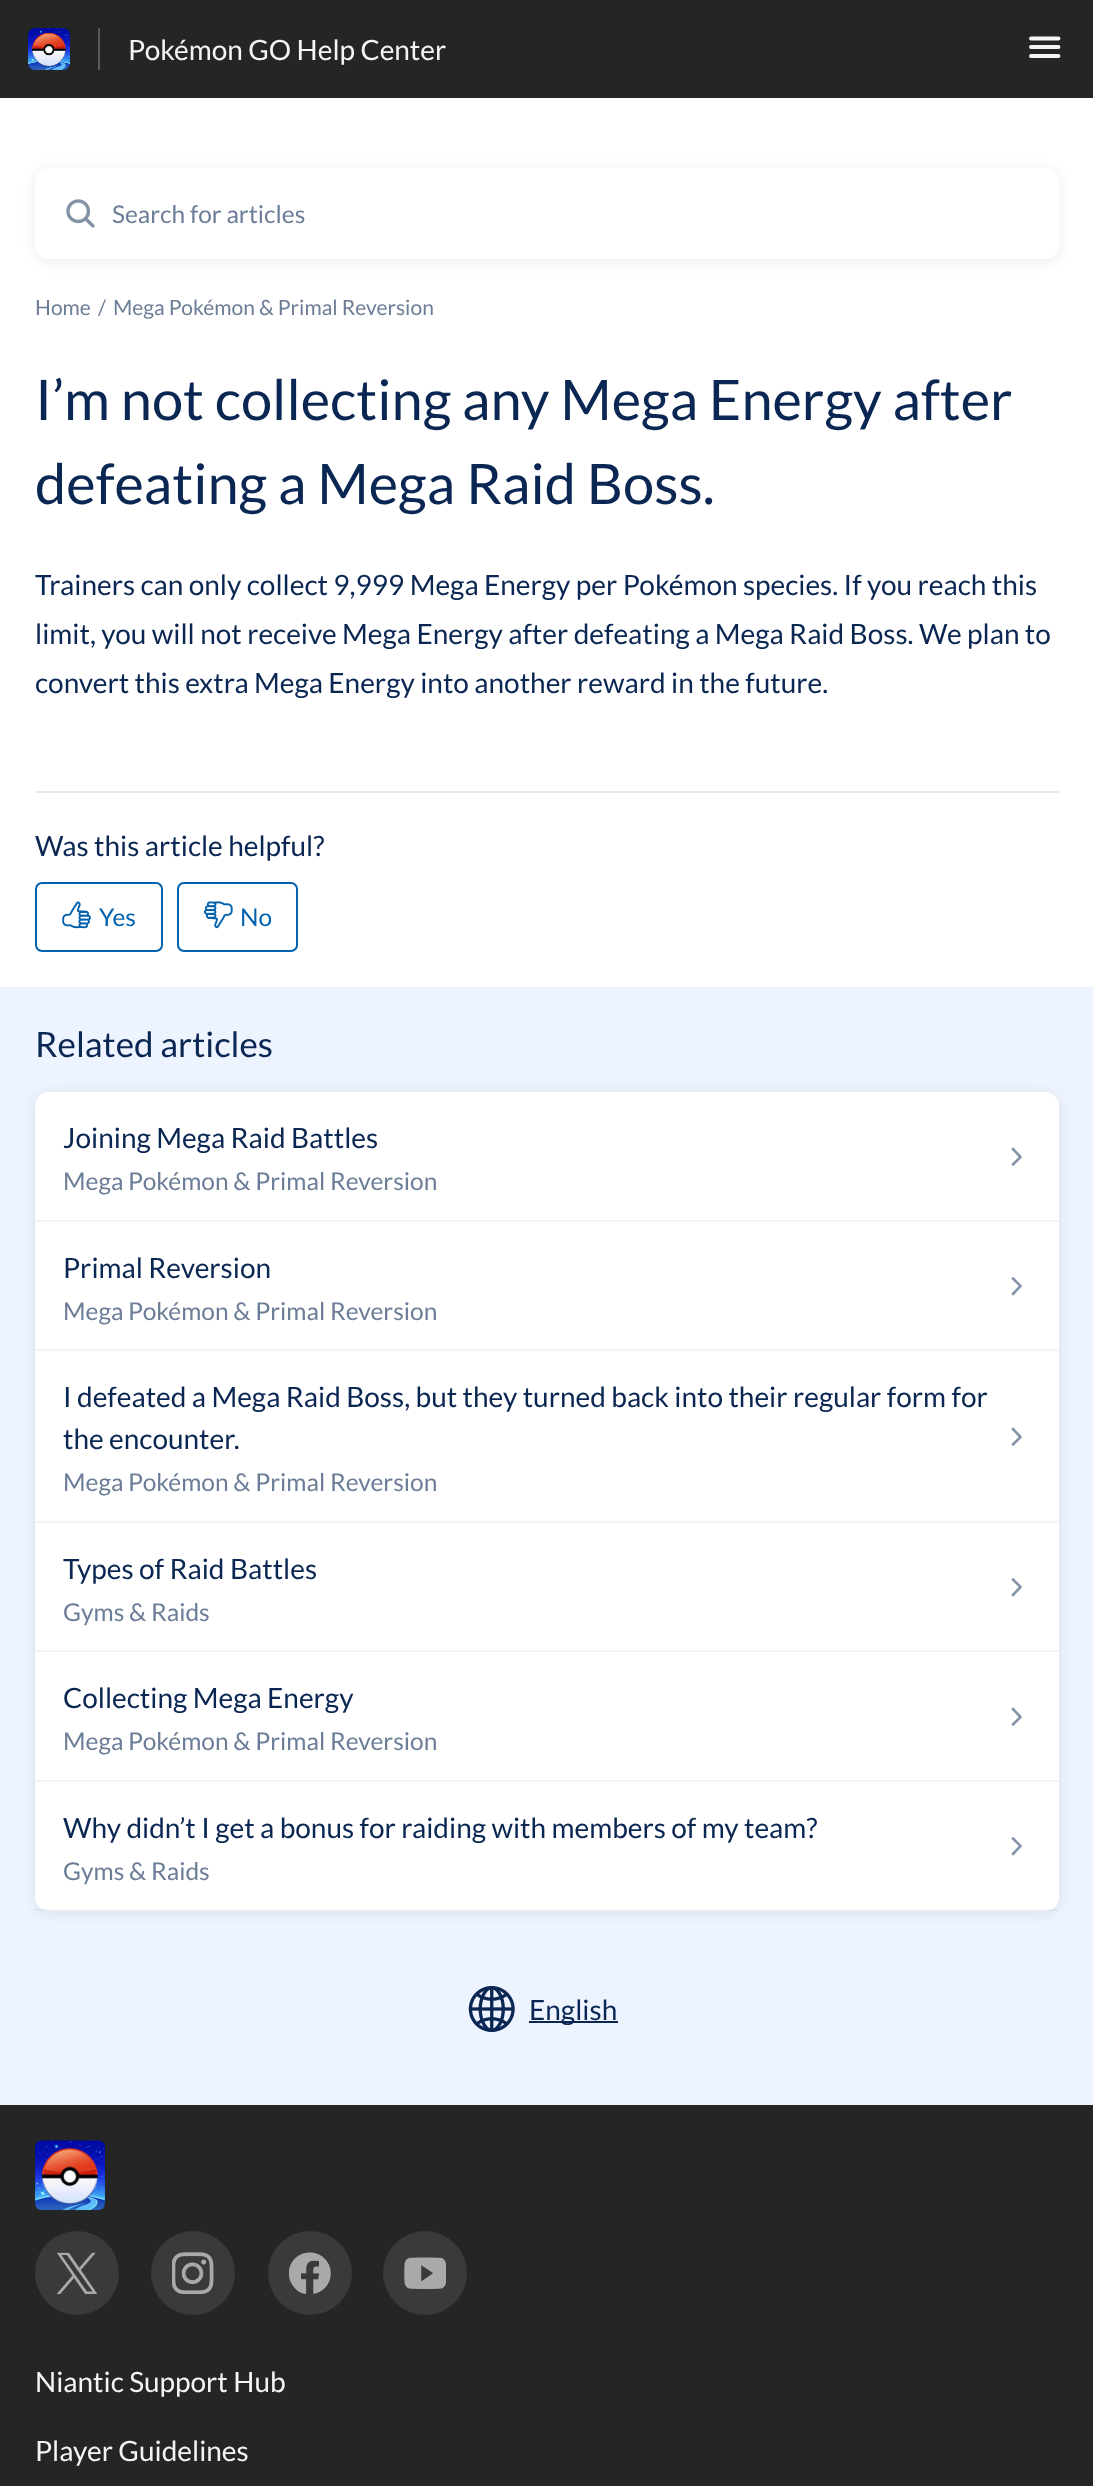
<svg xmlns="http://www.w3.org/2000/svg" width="1093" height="2486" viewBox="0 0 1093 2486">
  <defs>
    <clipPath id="clip1"><rect x="240" y="905" width="31" height="24"/></clipPath>
  </defs>
  <rect width="100%" height="100%" fill="rgb(238,244,255)"/>
  <rect x="0" y="0" width="1093" height="98" fill="rgb(37,37,37)"/>
  <rect x="98" y="28" width="2" height="42" fill="rgb(89,89,89)"/>
  <image x="28" y="28" width="42" height="42" href="pic1.png"/>
  <text x="128" y="60" font-family="Lato" font-size="28" fill="rgb(243,244,244)">Pokémon GO Help Center</text>
  <path d="M1031 38.5H1058.5M1031 47H1058.5M1031 56H1058.5" fill="none" stroke="rgb(243,244,244)" stroke-width="3.9" stroke-linecap="round"/>
  <rect x="0" y="98" width="1093" height="889" fill="rgb(255,255,255)"/>
  <rect x="35" y="170" width="1024" height="91" rx="14" fill="rgba(0,0,0,0.08)" filter="blur(7px)"/>
  <rect x="35" y="168" width="1024" height="91" rx="14" fill="rgb(255,255,255)"/>
  <image x="66" y="199" width="29" height="29" href="pic2.png"/>
  <text x="112" y="223" font-family="Lato" font-size="24.5" fill="rgb(108,125,151)">Search for articles</text>
  <g font-family="Lato" font-size="21" fill="rgb(108,125,151)">
    <text x="35" y="315">Home</text>
    <text x="98" y="315">/</text>
    <text x="113" y="315">Mega Pokémon &amp; Primal Reversion</text>
  </g>
  <g font-family="Lato" font-size="56" fill="rgb(10,38,82)">
    <text>
      <tspan x="35" y="420">I’m not collecting any Mega Energy after</tspan>
      <tspan x="35" y="504">defeating a Mega Raid Boss.</tspan>
    </text>
  </g>
  <rect x="35" y="791" width="1024" height="2" fill="rgb(231,233,238)"/>
  <g font-family="Lato" font-size="28" fill="rgb(10,38,82)">
    <text>
      <tspan x="35" y="595">Trainers can only collect 9,999 Mega Energy per Pokémon species. If you reach this</tspan>
      <tspan x="35" y="644">limit, you will not receive Mega Energy after defeating a Mega Raid Boss. We plan to</tspan>
      <tspan x="35" y="693">convert this extra Mega Energy into another reward in the future.</tspan>
    </text>
    <text x="35" y="856">Was this article helpful?</text>
  </g>
  <rect x="36" y="883" width="126" height="68" rx="6" fill="none" stroke="rgb(0,97,175)" stroke-width="2"/>
  <image x="62" y="901" width="29" height="28" href="pic3.png"/>
  <text x="99" y="926" font-family="Lato" font-size="24.5" fill="rgb(0,97,175)">Yes</text>
  <rect x="178" y="883" width="119" height="68" rx="6" fill="none" stroke="rgb(0,97,175)" stroke-width="2"/>
  <image x="204" y="901" width="29" height="28" href="pic4.png"/>
  <g clip-path="url(#clip1)">
    <text x="240" y="926" font-family="Lato" font-size="24.5" fill="rgb(0,97,175)">No</text>
  </g>
  <text x="35" y="1057" font-family="Lato" font-size="35" fill="rgb(10,38,82)">Related articles</text>
  <rect x="35" y="1094" width="1024" height="819" rx="14" fill="rgba(0,0,0,0.08)" filter="blur(7px)"/>
  <rect x="35" y="1092" width="1024" height="819" rx="14" fill="rgb(255,255,255)"/>
  <rect x="35" y="1220" width="1024" height="2" fill="rgb(243,244,246)"/>
  <text x="63" y="1148" font-family="Lato" font-size="28" fill="rgb(10,38,82)">Joining Mega Raid Battles</text>
  <text x="63" y="1190" font-family="Lato" font-size="24.5" fill="rgb(108,125,151)">Mega Pokémon &amp; Primal Reversion</text>
  <path d="M1013 1149L1020.5 1157L1013 1164.5" fill="none" stroke="rgb(133,147,169)" stroke-width="2.6" stroke-linecap="round" stroke-linejoin="round"/>
  <rect x="35" y="1349" width="1024" height="2" fill="rgb(243,244,246)"/>
  <text x="63" y="1278" font-family="Lato" font-size="28" fill="rgb(10,38,82)">Primal Reversion</text>
  <text x="63" y="1320" font-family="Lato" font-size="24.5" fill="rgb(108,125,151)">Mega Pokémon &amp; Primal Reversion</text>
  <path d="M1013 1278.5L1020.5 1286L1013 1294" fill="none" stroke="rgb(133,147,169)" stroke-width="2.6" stroke-linecap="round" stroke-linejoin="round"/>
  <rect x="35" y="1521" width="1024" height="2" fill="rgb(243,244,246)"/>
  <g font-family="Lato" font-size="28" fill="rgb(10,38,82)">
    <text>
      <tspan x="63" y="1407">I defeated a Mega Raid Boss, but they turned back into their regular form for</tspan>
      <tspan x="63" y="1449">the encounter.</tspan>
    </text>
  </g>
  <text x="63" y="1491" font-family="Lato" font-size="24.5" fill="rgb(108,125,151)">Mega Pokémon &amp; Primal Reversion</text>
  <path d="M1013 1429L1020.5 1437L1013 1444.5" fill="none" stroke="rgb(133,147,169)" stroke-width="2.6" stroke-linecap="round" stroke-linejoin="round"/>
  <rect x="35" y="1650" width="1024" height="2" fill="rgb(243,244,246)"/>
  <text x="63" y="1579" font-family="Lato" font-size="28" fill="rgb(10,38,82)">Types of Raid Battles</text>
  <text x="63" y="1621" font-family="Lato" font-size="24.5" fill="rgb(108,125,151)">Gyms &amp; Raids</text>
  <path d="M1013 1579.5L1020.5 1587L1013 1595" fill="none" stroke="rgb(133,147,169)" stroke-width="2.6" stroke-linecap="round" stroke-linejoin="round"/>
  <rect x="35" y="1780" width="1024" height="2" fill="rgb(243,244,246)"/>
  <text x="63" y="1708" font-family="Lato" font-size="28" fill="rgb(10,38,82)">Collecting Mega Energy</text>
  <text x="63" y="1750" font-family="Lato" font-size="24.5" fill="rgb(108,125,151)">Mega Pokémon &amp; Primal Reversion</text>
  <path d="M1013 1709L1020.5 1717L1013 1724.5" fill="none" stroke="rgb(133,147,169)" stroke-width="2.6" stroke-linecap="round" stroke-linejoin="round"/>
  <rect x="35" y="1909" width="1024" height="2" fill="rgba(10,38,82,0.05)"/>
  <text x="63" y="1838" font-family="Lato" font-size="28" fill="rgb(10,38,82)">Why didn’t I get a bonus for raiding with members of my team?</text>
  <text x="63" y="1880" font-family="Lato" font-size="24.5" fill="rgb(108,125,151)">Gyms &amp; Raids</text>
  <path d="M1013 1838.5L1020.5 1846L1013 1854" fill="none" stroke="rgb(133,147,169)" stroke-width="2.6" stroke-linecap="round" stroke-linejoin="round"/>
  <image x="468" y="1986" width="47" height="46" href="pic5.png"/>
  <rect x="529" y="2021" width="89" height="2" fill="rgb(10,38,82)"/>
  <text x="529" y="2020" font-family="Lato" font-size="28" fill="rgb(10,38,82)">English</text>
  <rect x="0" y="2105" width="1093" height="381" fill="rgb(37,37,37)"/>
  <image x="35" y="2140" width="70" height="71" href="pic6.png"/>
  <circle cx="77" cy="2273" r="42" fill="rgb(58,58,58)"/>
  <image x="57" y="2252" width="40" height="42" href="pic7.png"/>
  <circle cx="193" cy="2273" r="42" fill="rgb(58,58,58)"/>
  <image x="172" y="2252" width="42" height="42" href="pic8.png"/>
  <circle cx="310" cy="2273" r="42" fill="rgb(58,58,58)"/>
  <image x="289" y="2252" width="42" height="42" href="pic9.png"/>
  <circle cx="425" cy="2273" r="42" fill="rgb(58,58,58)"/>
  <image x="404" y="2257" width="42" height="32" href="pic10.png"/>
  <g font-family="Lato" font-size="28" fill="rgb(243,244,244)">
    <text x="35" y="2392">Niantic Support Hub</text>
    <text x="35" y="2461">Player Guidelines</text>
  </g>
</svg>
